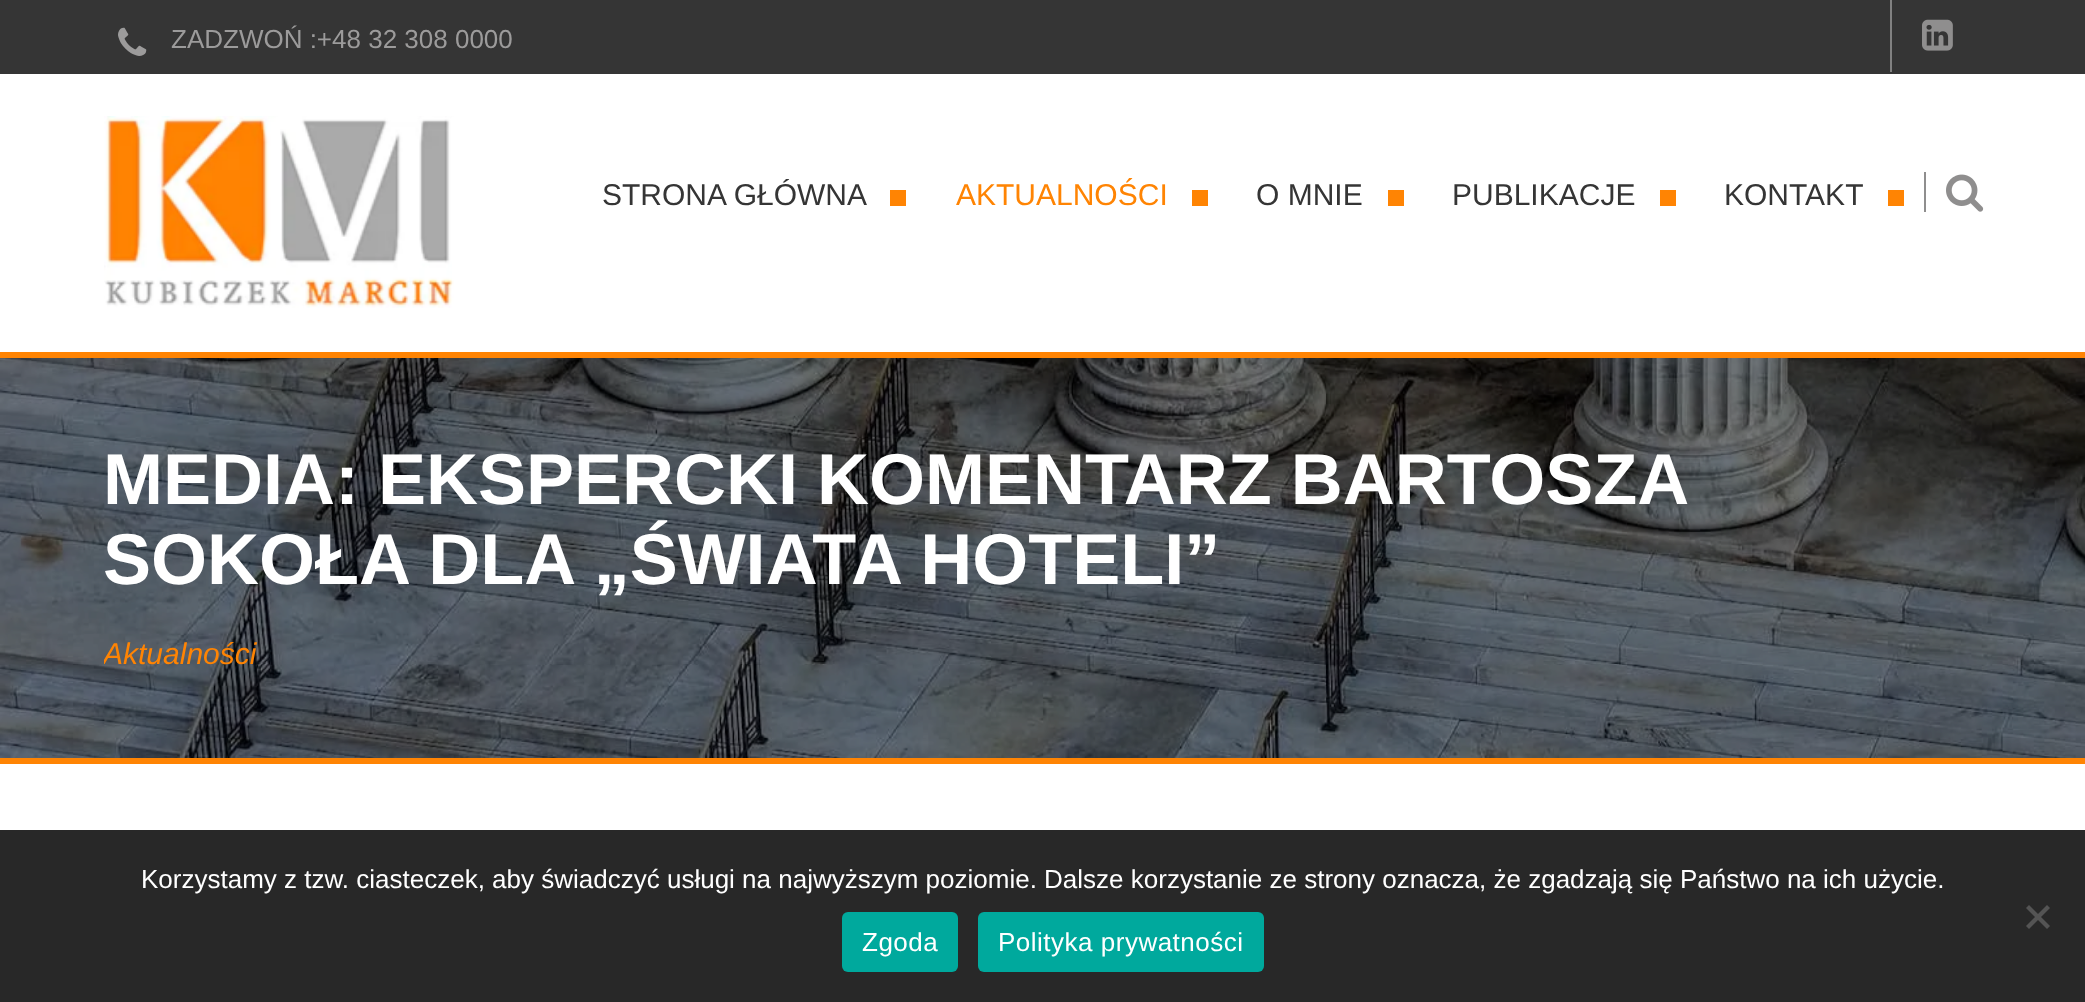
<svg xmlns="http://www.w3.org/2000/svg" width="2085" height="1002" viewBox="0 0 2085 1002">
  <defs>
    <clipPath id="clip1"><rect x="104" y="630" width="1880" height="46"/></clipPath>
  </defs>
  <rect width="100%" height="100%" fill="rgb(255,255,255)"/>
  <rect x="0" y="352" width="2085" height="6" fill="rgb(255,132,3)"/>
  <rect x="0" y="0" width="2085" height="74" fill="rgb(53,53,53)"/>
  <image x="118" y="27" width="29" height="29" href="pic1.png"/>
  <text x="171" y="48" font-family="Liberation Sans" font-size="26" fill="rgb(156,155,155)">ZADZWOŃ :+48 32 308 0000</text>
  <rect x="1890" y="0" width="2" height="72" fill="rgb(129,129,129)"/>
  <image x="1922" y="19" width="31" height="32" href="pic2.png"/>
  <image x="104" y="116" width="350" height="192" href="pic3.png"/>
  <rect x="1924" y="172" width="2" height="40" fill="rgb(143,142,142)"/>
  <text x="602" y="205" font-family="Liberation Sans" font-size="30" fill="rgb(53,53,53)">STRONA GŁÓWNA</text>
  <rect x="890" y="190" width="16" height="16" fill="rgb(255,132,3)"/>
  <text x="956" y="205" font-family="Liberation Sans" font-size="30" fill="rgb(255,132,3)">AKTUALNOŚCI</text>
  <rect x="1192" y="190" width="16" height="16" fill="rgb(255,132,3)"/>
  <text x="1256" y="205" font-family="Liberation Sans" font-size="30" fill="rgb(53,53,53)">O MNIE</text>
  <rect x="1388" y="190" width="16" height="16" fill="rgb(255,132,3)"/>
  <text x="1452" y="205" font-family="Liberation Sans" font-size="30" fill="rgb(53,53,53)">PUBLIKACJE</text>
  <rect x="1660" y="190" width="16" height="16" fill="rgb(255,132,3)"/>
  <text x="1724" y="205" font-family="Liberation Sans" font-size="30" fill="rgb(53,53,53)">KONTAKT</text>
  <rect x="1888" y="190" width="16" height="16" fill="rgb(255,132,3)"/>
  <image x="1946" y="174" width="38" height="38" href="pic4.png"/>
  <image x="0" y="358" width="2085" height="400" href="pic5.png"/>
  <rect x="0" y="758" width="2085" height="6" fill="rgb(255,132,3)"/>
  <g font-family="Liberation Sans" font-size="72" font-weight="bold" fill="rgb(255,255,255)">
    <text>
      <tspan x="103" y="504" word-spacing="-1">MEDIA: EKSPERCKI KOMENTARZ BARTOSZA</tspan>
      <tspan x="103" y="584">SOKOŁA DLA „ŚWIATA HOTELI”</tspan>
    </text>
  </g>
  <g clip-path="url(#clip1)">
    <text x="103" y="664" font-family="Liberation Sans" font-size="30" font-style="italic" fill="rgb(255,132,3)">Aktualności</text>
  </g>
  <rect x="0" y="830" width="2085" height="172" fill="rgb(40,40,40)"/>
  <text x="141" y="888" font-family="Liberation Sans" font-size="26" fill="rgb(255,255,255)">Korzystamy z tzw. ciasteczek, aby świadczyć usługi na najwyższym poziomie. Dalsze korzystanie ze strony oznacza, że zgadzają się Państwo na ich użycie.</text>
  <path d="M2047 905L2050 908L2029 929L2026 926Z" fill="rgb(84,84,84)"/>
  <path d="M2026 908L2029 905L2050 926L2047 929Z" fill="rgb(84,84,84)"/>
  <rect x="842" y="912" width="116" height="60" rx="6" fill="rgb(0,169,157)"/>
  <text x="862" y="951" font-family="Liberation Sans" font-size="26" letter-spacing="0.5" fill="rgb(255,255,255)">Zgoda</text>
  <rect x="978" y="912" width="286" height="60" rx="6" fill="rgb(0,169,157)"/>
  <text x="998" y="951" font-family="Liberation Sans" font-size="26" letter-spacing="0.5" fill="rgb(255,255,255)">Polityka prywatności</text>
</svg>
